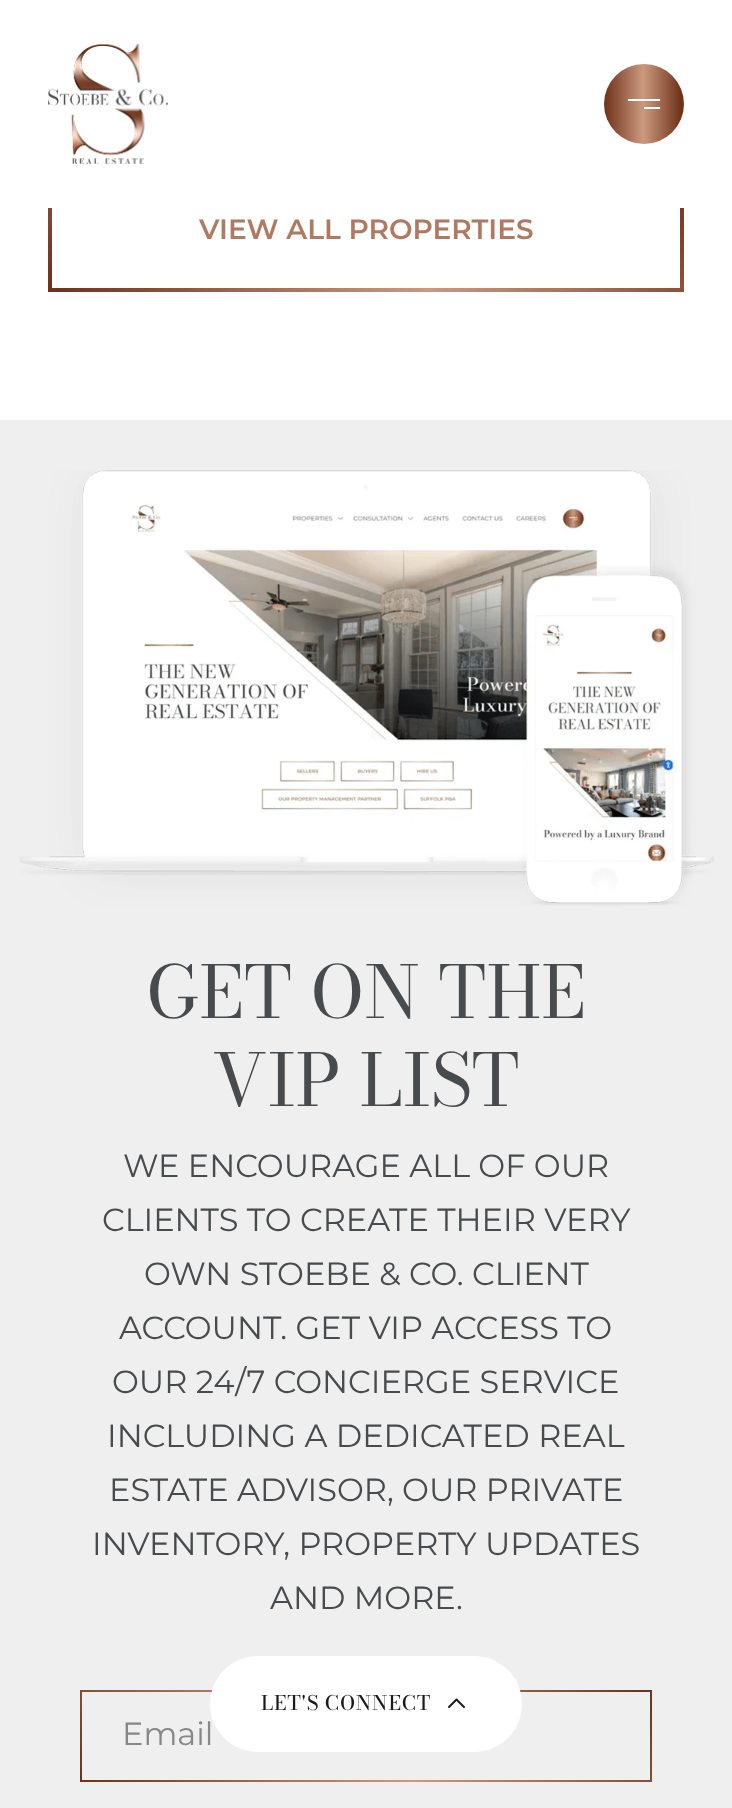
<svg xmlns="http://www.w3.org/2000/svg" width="732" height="1808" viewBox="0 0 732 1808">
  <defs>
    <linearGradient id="g1" gradientUnits="userSpaceOnUse" x1="604" y1="104" x2="684" y2="104"><stop offset="0" stop-color="rgb(110,49,25)"/><stop offset="0.49" stop-color="rgb(204,153,127)"/><stop offset="0.97" stop-color="rgb(110,49,25)"/></linearGradient>
  </defs>
  <rect width="100%" height="100%" fill="rgb(255,255,255)"/>
  <image x="48" y="44" width="120" height="120" href="pic1.png"/>
  <circle cx="644" cy="104" r="40" fill="url(#g1)"/>
  <rect x="628" y="99" width="32" height="2" fill="rgb(255,255,255)"/>
  <rect x="644" y="107" width="16" height="2" fill="rgb(255,255,255)"/>
  <image x="48" y="208" width="636" height="84" href="pic2.png"/>
  <text x="199" y="239" font-family="Montserrat" font-size="28" font-weight="600" fill="rgb(176,122,97)">VIEW ALL PROPERTIES</text>
  <rect x="0" y="420" width="732" height="1388" fill="rgb(239,239,239)"/>
  <image x="19" y="470" width="695" height="436" href="pic3.png"/>
  <g font-family="Bodoni Moda" font-size="72" fill="rgb(72,75,77)">
    <text x="146" y="1018">GET ON THE</text>
    <text x="212" y="1106">VIP LIST</text>
  </g>
  <g font-family="Montserrat" font-size="32" fill="rgb(72,75,77)">
    <text x="123" y="1177">WE ENCOURAGE ALL OF OUR</text>
    <text x="102" y="1231">CLIENTS TO CREATE THEIR VERY</text>
    <text x="144" y="1285">OWN STOEBE &amp; CO. CLIENT</text>
    <text x="119" y="1339">ACCOUNT. GET VIP ACCESS TO</text>
    <text x="112" y="1393">OUR 24/7 CONCIERGE SERVICE</text>
    <text x="107" y="1447">INCLUDING A DEDICATED REAL</text>
    <text x="109" y="1501">ESTATE ADVISOR, OUR PRIVATE</text>
    <text x="92" y="1555">INVENTORY, PROPERTY UPDATES</text>
    <text x="270" y="1609">AND MORE.</text>
  </g>
  <image x="80" y="1690" width="572" height="92" href="pic4.png"/>
  <text x="122" y="1745" font-family="Montserrat" font-size="32" fill="rgb(135,135,135)">Email</text>
  <rect x="210" y="1656" width="312" height="96" rx="48" fill="rgb(255,255,255)"/>
  <rect x="211" y="1657" width="310" height="94" rx="47" fill="none" stroke="rgba(255,255,255,0.2)" stroke-width="2"/>
  <text x="261" y="1710" font-family="Bodoni Moda" font-size="20" font-weight="500" letter-spacing="0.75" fill="rgb(26,26,26)">LET'S CONNECT</text>
  <path d="M464 1707L456.5 1699.5L449 1707" fill="none" stroke="rgb(26,26,26)" stroke-width="1.9" stroke-linecap="round" stroke-linejoin="round"/>
</svg>
